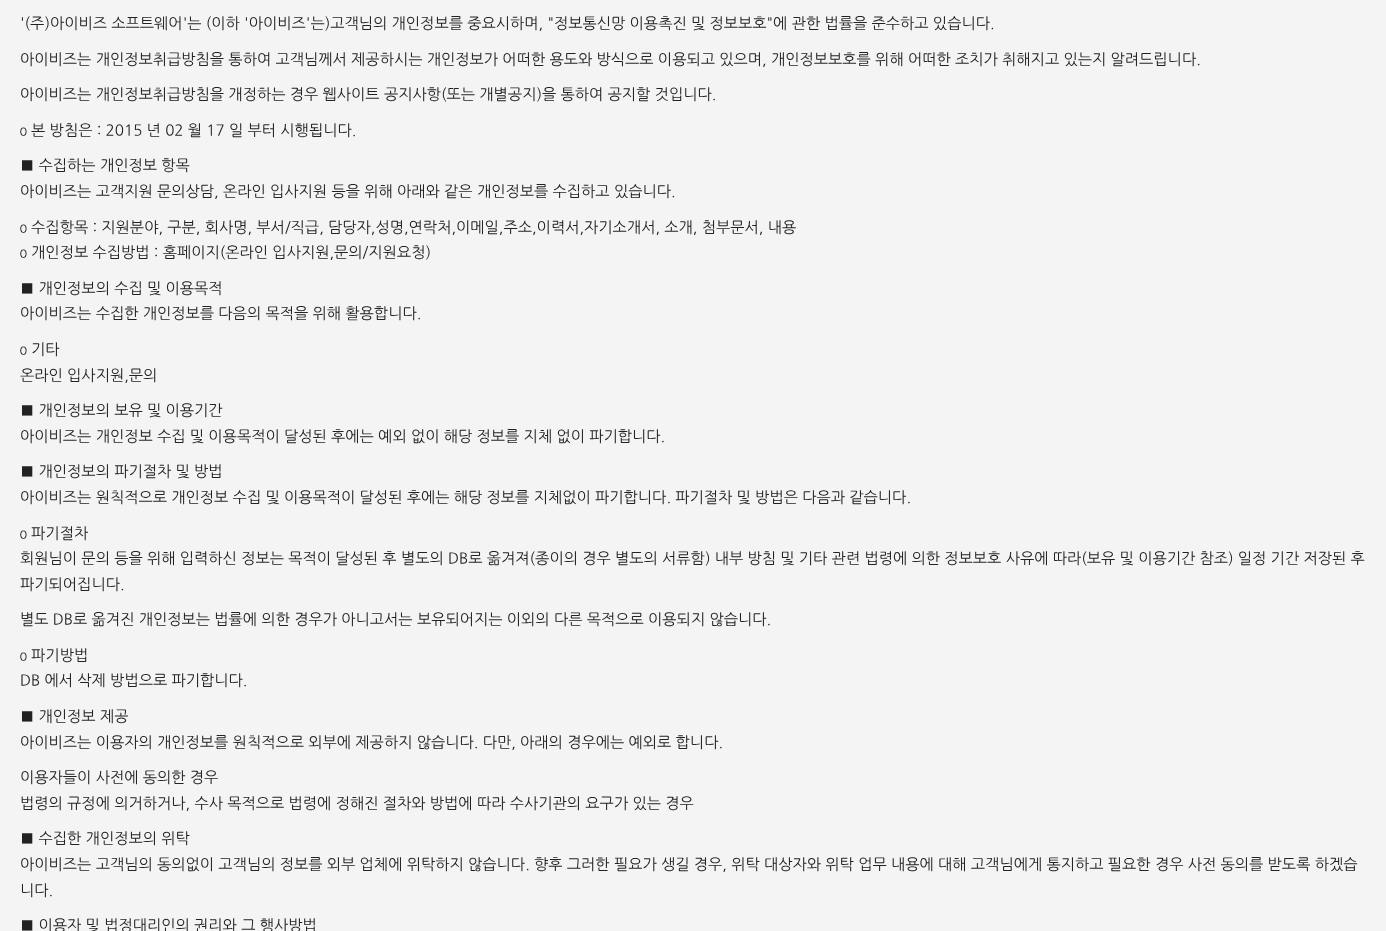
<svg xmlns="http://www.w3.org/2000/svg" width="1386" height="931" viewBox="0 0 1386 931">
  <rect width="100%" height="100%" fill="rgb(244,244,244)"/>
  <g font-family="NanumGothic" font-size="15.2" fill="rgb(34,34,34)">
    <text x="20" y="28">'(주)아이비즈 소프트웨어'는 (이하 '아이비즈'는)고객님의 개인정보를 중요시하며, "정보통신망 이용촉진 및 정보보호"에 관한 법률을 준수하고 있습니다.</text>
    <text x="20" y="64">아이비즈는 개인정보취급방침을 통하여 고객님께서 제공하시는 개인정보가 어떠한 용도와 방식으로 이용되고 있으며, 개인정보보호를 위해 어떠한 조치가 취해지고 있는지 알려드립니다.</text>
    <text x="20" y="99">아이비즈는 개인정보취급방침을 개정하는 경우 웹사이트 공지사항(또는 개별공지)을 통하여 공지할 것입니다.</text>
    <text x="20" y="135">ο 본 방침은 : 2015 년 02 월 17 일 부터 시행됩니다.</text>
    <text>
      <tspan x="20" y="170">■ 수집하는 개인정보 항목</tspan>
      <tspan x="20" y="196">아이비즈는 고객지원 문의상담, 온라인 입사지원 등을 위해 아래와 같은 개인정보를 수집하고 있습니다.</tspan>
    </text>
    <text>
      <tspan x="20" y="232">ο 수집항목 : 지원분야, 구분, 회사명, 부서/직급, 담당자,성명,연락처,이메일,주소,이력서,자기소개서, 소개, 첨부문서, 내용</tspan>
      <tspan x="20" y="257">ο 개인정보 수집방법 : 홈페이지(온라인 입사지원,문의/지원요청)</tspan>
    </text>
    <text>
      <tspan x="20" y="293">■ 개인정보의 수집 및 이용목적</tspan>
      <tspan x="20" y="318">아이비즈는 수집한 개인정보를 다음의 목적을 위해 활용합니다.</tspan>
    </text>
    <text>
      <tspan x="20" y="354">ο 기타</tspan>
      <tspan x="20" y="380">온라인 입사지원,문의</tspan>
    </text>
    <text>
      <tspan x="20" y="415">■ 개인정보의 보유 및 이용기간</tspan>
      <tspan x="20" y="441">아이비즈는 개인정보 수집 및 이용목적이 달성된 후에는 예외 없이 해당 정보를 지체 없이 파기합니다.</tspan>
    </text>
    <text>
      <tspan x="20" y="476">■ 개인정보의 파기절차 및 방법</tspan>
      <tspan x="20" y="502">아이비즈는 원칙적으로 개인정보 수집 및 이용목적이 달성된 후에는 해당 정보를 지체없이 파기합니다. 파기절차 및 방법은 다음과 같습니다.</tspan>
    </text>
    <text>
      <tspan x="20" y="538">ο 파기절차</tspan>
      <tspan x="20" y="563">회원님이 문의 등을 위해 입력하신 정보는 목적이 달성된 후 별도의 DB로 옮겨져(종이의 경우 별도의 서류함) 내부 방침 및 기타 관련 법령에 의한 정보보호 사유에 따라(보유 및 이용기간 참조) 일정 기간 저장된 후</tspan>
      <tspan x="20" y="589">파기되어집니다.</tspan>
    </text>
    <text x="20" y="624">별도 DB로 옮겨진 개인정보는 법률에 의한 경우가 아니고서는 보유되어지는 이외의 다른 목적으로 이용되지 않습니다.</text>
    <text>
      <tspan x="20" y="660">ο 파기방법</tspan>
      <tspan x="20" y="685">DB 에서 삭제 방법으로 파기합니다.</tspan>
    </text>
    <text>
      <tspan x="20" y="721">■ 개인정보 제공</tspan>
      <tspan x="20" y="747">아이비즈는 이용자의 개인정보를 원칙적으로 외부에 제공하지 않습니다. 다만, 아래의 경우에는 예외로 합니다.</tspan>
    </text>
    <text>
      <tspan x="20" y="782">이용자들이 사전에 동의한 경우</tspan>
      <tspan x="20" y="808">법령의 규정에 의거하거나, 수사 목적으로 법령에 정해진 절차와 방법에 따라 수사기관의 요구가 있는 경우</tspan>
    </text>
    <text>
      <tspan x="20" y="843">■ 수집한 개인정보의 위탁</tspan>
      <tspan x="20" y="869">아이비즈는 고객님의 동의없이 고객님의 정보를 외부 업체에 위탁하지 않습니다. 향후 그러한 필요가 생길 경우, 위탁 대상자와 위탁 업무 내용에 대해 고객님에게 통지하고 필요한 경우 사전 동의를 받도록 하겠습</tspan>
      <tspan x="20" y="895">니다.</tspan>
    </text>
    <text x="20" y="930">■ 이용자 및 법정대리인의 권리와 그 행사방법</text>
  </g>
</svg>
